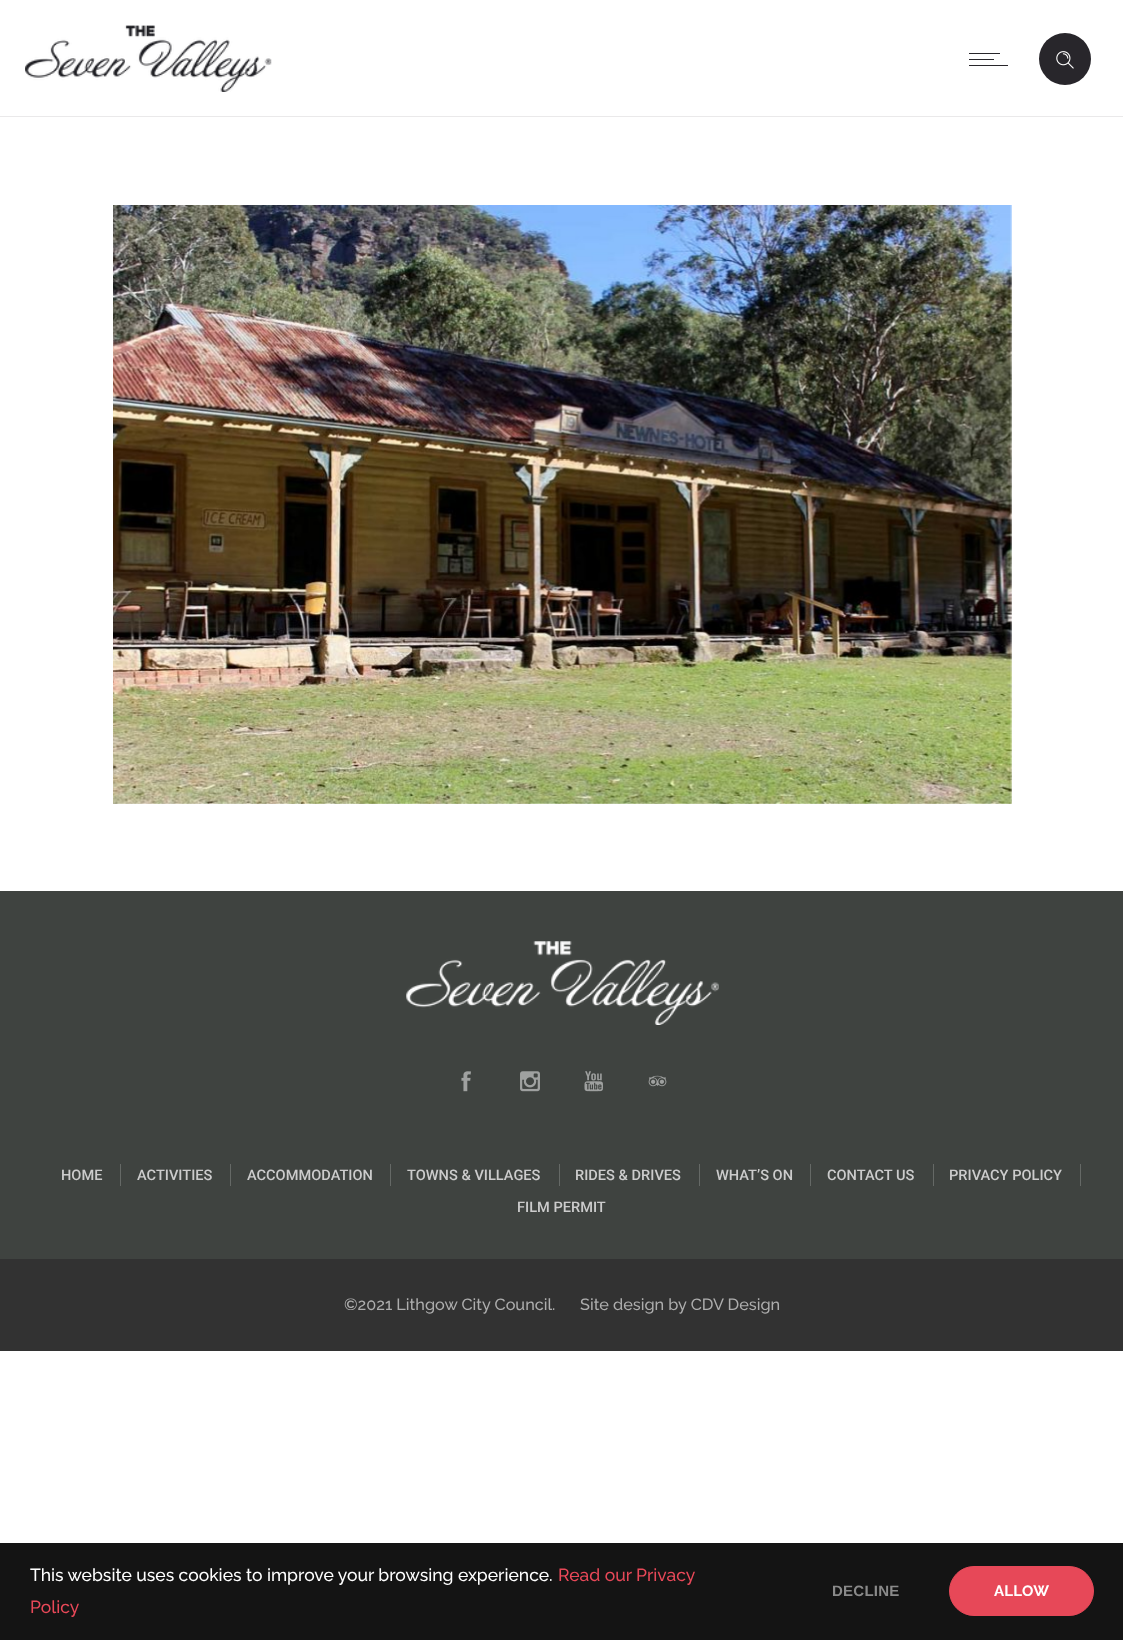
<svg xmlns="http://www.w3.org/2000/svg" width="1123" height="1640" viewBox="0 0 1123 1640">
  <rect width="100%" height="100%" fill="rgb(255,255,255)"/>
  <rect x="0" y="116" width="1123" height="1" fill="rgb(234,233,234)"/>
  <image x="25" y="25" width="247" height="67" href="pic1.png"/>
  <rect x="969" y="53" width="31" height="1" fill="rgb(40,38,43)"/>
  <rect x="969" y="59" width="25" height="1" fill="rgb(40,38,43)"/>
  <rect x="969" y="65" width="39" height="1" fill="rgb(40,38,43)"/>
  <circle cx="1065" cy="59" r="26" fill="rgb(40,38,43)"/>
  <image x="1056" y="51" width="18" height="18" href="pic2.png"/>
  <image x="113" y="205" width="899" height="599" href="pic3.png"/>
  <rect x="0" y="891" width="1123" height="368" fill="rgb(63,67,64)"/>
  <image x="406" y="941" width="313" height="84" href="pic4.png"/>
  <image x="461" y="1071" width="10" height="21" href="pic5.png"/>
  <image x="520" y="1071" width="20" height="21" href="pic6.png"/>
  <image x="584" y="1071" width="19" height="21" href="pic7.png"/>
  <image x="648" y="1075" width="19" height="12" href="pic8.png"/>
  <text x="61" y="1180" font-family="Roboto" font-size="14.6" font-weight="500" fill="rgb(204,204,204)">HOME</text>
  <rect x="120" y="1164" width="1" height="22" fill="rgb(101,105,102)"/>
  <text x="137" y="1180" font-family="Roboto" font-size="14.6" font-weight="500" fill="rgb(204,204,204)">ACTIVITIES</text>
  <rect x="230" y="1164" width="1" height="22" fill="rgb(101,105,102)"/>
  <text x="247" y="1180" font-family="Roboto" font-size="14.6" font-weight="500" fill="rgb(204,204,204)">ACCOMMODATION</text>
  <rect x="390" y="1164" width="1" height="22" fill="rgb(101,105,102)"/>
  <text x="407" y="1180" font-family="Roboto" font-size="14.6" font-weight="500" fill="rgb(204,204,204)">TOWNS &amp; VILLAGES</text>
  <rect x="559" y="1164" width="1" height="22" fill="rgb(101,105,102)"/>
  <text x="575" y="1180" font-family="Roboto" font-size="14.6" font-weight="500" fill="rgb(204,204,204)">RIDES &amp; DRIVES</text>
  <rect x="699" y="1164" width="1" height="22" fill="rgb(101,105,102)"/>
  <text x="716" y="1180" font-family="Roboto" font-size="14.6" font-weight="500" fill="rgb(204,204,204)">WHAT’S ON</text>
  <rect x="810" y="1164" width="1" height="22" fill="rgb(101,105,102)"/>
  <text x="827" y="1180" font-family="Roboto" font-size="14.6" font-weight="500" fill="rgb(204,204,204)">CONTACT US</text>
  <rect x="933" y="1164" width="1" height="22" fill="rgb(101,105,102)"/>
  <text x="949" y="1180" font-family="Roboto" font-size="14.6" font-weight="500" fill="rgb(204,204,204)">PRIVACY POLICY</text>
  <rect x="1080" y="1164" width="1" height="22" fill="rgb(101,105,102)"/>
  <text x="517" y="1212" font-family="Roboto" font-size="14.6" font-weight="500" fill="rgb(204,204,204)">FILM PERMIT</text>
  <rect x="0" y="1259" width="1123" height="92" fill="rgb(50,50,50)"/>
  <g font-family="Raleway" font-size="16.25" font-weight="500" fill="rgb(173,173,173)">
    <text x="344" y="1310">©2021 Lithgow City Council.</text>
    <text x="580" y="1310">Site design by CDV Design</text>
  </g>
  <rect x="0" y="1543" width="1123" height="97" fill="rgb(20,20,20)"/>
  <text x="30" y="1581" font-family="Raleway" font-size="17.5" font-weight="500" fill="rgb(255,255,255)">This website uses cookies to improve your browsing experience.</text>
  <g font-family="Raleway" font-size="17.5" font-weight="500" fill="rgb(231,72,88)">
    <text x="558" y="1581">Read our Privacy</text>
    <text x="30" y="1613">Policy</text>
  </g>
  <text x="832" y="1596" font-family="Liberation Sans" font-size="15" font-weight="bold" letter-spacing="0.25" fill="rgb(138,138,138)">DECLINE</text>
  <rect x="949.5" y="1566.5" width="144" height="49" rx="24.5" fill="rgb(231,72,88)" stroke="rgb(231,72,88)"/>
  <text x="994" y="1596" font-family="Raleway" font-size="15" font-weight="bold" letter-spacing="0.25" fill="rgb(255,255,255)">ALLOW</text>
</svg>
